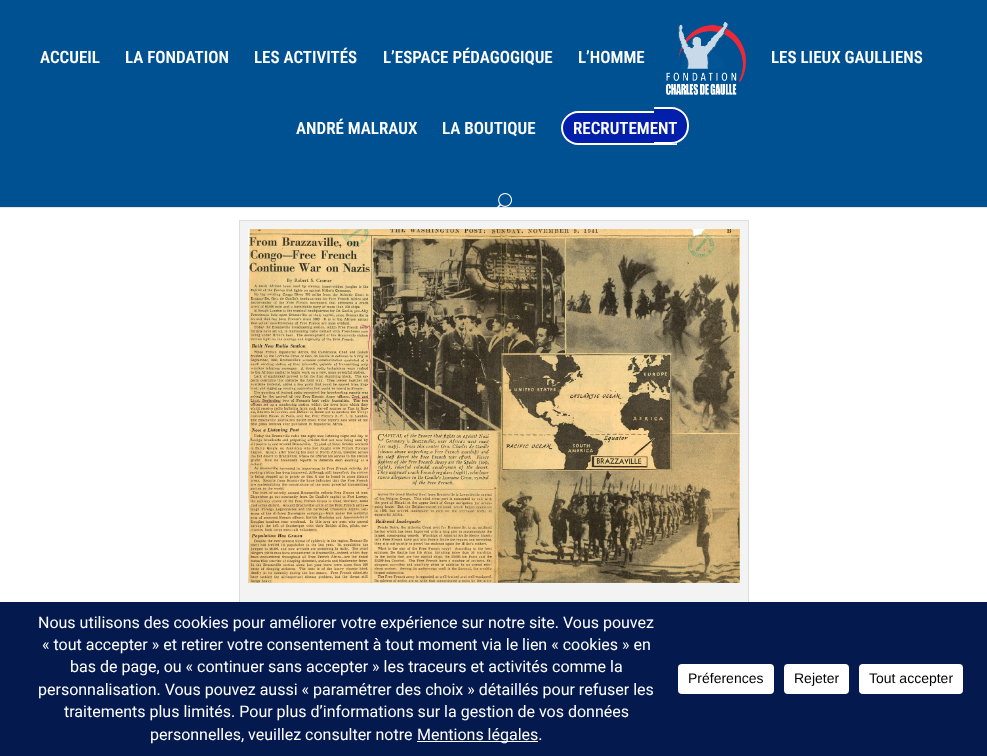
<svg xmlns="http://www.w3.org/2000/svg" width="987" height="756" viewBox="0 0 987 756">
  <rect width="100%" height="100%" fill="rgb(255,255,255)"/>
  <rect x="0" y="207" width="987" height="1" fill="rgb(230,230,230)"/>
  <rect x="0" y="0" width="987" height="207" fill="rgb(0,81,145)"/>
  <g font-family="Roboto Condensed" font-size="17" font-weight="600" fill="rgb(255,255,255)">
    <text x="40" y="63">ACCUEIL</text>
    <text x="125" y="63">LA FONDATION</text>
    <text x="254" y="63">LES ACTIVITÉS</text>
    <text x="383" y="63">L’ESPACE PÉDAGOGIQUE</text>
    <text x="578" y="63">L’HOMME</text>
  </g>
  <image x="666" y="22" width="80" height="73" href="pic1.png"/>
  <g font-family="Roboto Condensed" font-size="17" font-weight="600" fill="rgb(255,255,255)">
    <text x="771" y="63">LES LIEUX GAULLIENS</text>
    <text x="296" y="134">ANDRÉ MALRAUX</text>
    <text x="442" y="134">LA BOUTIQUE</text>
  </g>
  <path d="M578 111H677V145H578C568.5 145 561 137.5 561 128C561 118.5 568.5 111 578 111Z" fill="rgb(2,31,172)"/>
  <path d="M578 111H677V145H578C569 145 561 137 561 128C561 119 569 111 578 111ZM578 113H677V143H578C570 143 563 136 563 128C563 120 570 113 578 113Z" fill="rgb(255,255,255)" fill-rule="evenodd"/>
  <path d="M654 107H671.5C681 107 689 115 689 124.5V126.5C689 136 681 144 671.5 144H654Z" fill="rgb(2,31,172)"/>
  <path d="M654 107H671.5C681 107 689 115 689 124.5V126.5C689 136 681 144 671.5 144H654ZM654 109H671.5C680 109 687 116 687 124.5V126.5C687 135 680 142 671.5 142H654Z" fill="rgb(255,255,255)" fill-rule="evenodd"/>
  <text x="573" y="134" font-family="Roboto Condensed" font-size="17" font-weight="600" fill="rgb(255,255,255)">RECRUTEMENT</text>
  <image x="496" y="193" width="16" height="15" href="pic2.png"/>
  <rect x="240" y="221" width="508" height="381" fill="rgb(243,243,243)"/>
  <rect x="239.5" y="220.5" width="509" height="408" fill="none" stroke="rgb(221,221,221)"/>
  <image x="248" y="229" width="492" height="354" href="pic3.png"/>
  <rect x="0" y="602" width="987" height="154" fill="rgb(4,25,78)"/>
  <g font-family="Roboto" font-size="16" fill="rgb(255,255,255)">
    <text x="38" y="628">Nous utilisons des cookies pour améliorer votre expérience sur notre site. Vous pouvez</text>
    <text x="42" y="650">« tout accepter » et retirer votre consentement à tout moment via le lien « cookies » en</text>
    <text x="70" y="672">bas de page, ou « continuer sans accepter » les traceurs et activités comme la</text>
    <text x="38" y="695">personnalisation. Vous pouvez aussi « paramétrer des choix » détaillés pour refuser les</text>
    <text x="64" y="717">traitements plus limités. Pour plus d’informations sur la gestion de vos données</text>
    <text x="150" y="740">personnelles, veuillez consulter notre</text>
  </g>
  <rect x="417" y="741" width="121" height="1" fill="rgb(255,255,255)"/>
  <text x="417" y="740" font-family="Roboto" font-size="16" fill="rgb(255,255,255)">Mentions légales.</text>
  <rect x="678" y="664" width="96" height="30" rx="4" fill="rgb(255,255,255)"/>
  <text x="688" y="683" font-family="Liberation Sans" font-size="14" fill="rgb(0,0,0)">Préferences</text>
  <rect x="784" y="664" width="65" height="30" rx="4" fill="rgb(255,255,255)"/>
  <text x="794" y="683" font-family="Liberation Sans" font-size="14" fill="rgb(0,0,0)">Rejeter</text>
  <rect x="859" y="664" width="104" height="30" rx="4" fill="rgb(255,255,255)"/>
  <text x="869" y="683" font-family="Liberation Sans" font-size="14" fill="rgb(0,0,0)">Tout accepter</text>
</svg>
